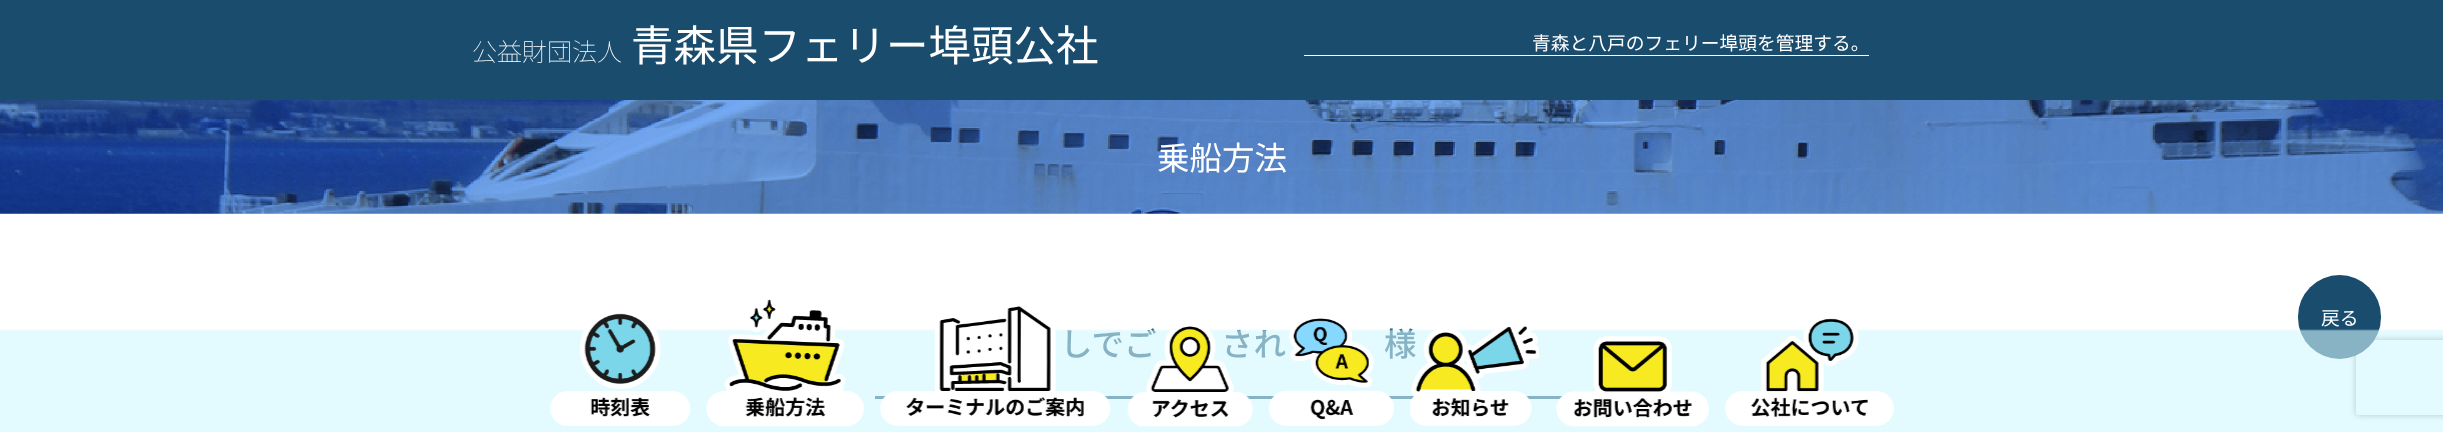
<svg xmlns="http://www.w3.org/2000/svg" width="2443" height="432" viewBox="0 0 2443 432">
  <defs>
    <clipPath id="clip1"><path d="M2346 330H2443V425H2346ZM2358.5 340H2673.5C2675 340 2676 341 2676 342.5V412.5C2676 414 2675 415 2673.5 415H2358.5C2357 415 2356 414 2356 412.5V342.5C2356 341 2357 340 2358.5 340Z" clip-rule="evenodd"/></clipPath>
  </defs>
  <rect width="100%" height="100%" fill="rgb(255,255,255)"/>
  <rect x="0" y="0" width="2443" height="100" fill="rgb(25,76,109)"/>
  <text x="472" y="61" font-family="Noto Sans JP" font-size="25" font-weight="100" fill="rgb(255,255,255)">公益財団法人</text>
  <text x="631" y="61" font-family="Noto Sans JP" font-size="42.5" fill="rgb(255,255,255)">青森県フェリー埠頭公社</text>
  <rect x="1304" y="55" width="565" height="1" fill="rgb(255,255,255)"/>
  <text x="1532" y="50" font-family="Noto Sans JP" font-size="18.75" fill="rgb(255,255,255)">青森と八戸のフェリー埠頭を管理する。</text>
  <g clip-path="url(#clip1)">
    <rect x="2356" y="340" width="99" height="75" rx="2.5" fill="rgb(128,128,128)" filter="blur(3px)"/>
  </g>
  <rect x="2298" y="275" width="83" height="84" rx="41.5" fill="rgb(25,76,109)"/>
  <rect x="875" y="396" width="694" height="3" fill="rgb(25,76,109)"/>
  <g font-family="Noto Sans JP" font-size="32.5" font-weight="500" fill="rgb(25,76,109)">
    <text x="1060" y="356">しでご</text>
    <text x="1221" y="356">され</text>
    <text x="1384" y="356">様</text>
  </g>
  <image x="0" y="329" width="2443" height="103" href="pic8.png"/>
  <image x="549" y="313" width="142" height="113" href="pic1.png"/>
  <image x="706" y="299" width="158" height="128" href="pic2.png"/>
  <image x="879" y="306" width="232" height="120" href="pic3.png"/>
  <image x="1127" y="326" width="126" height="101" href="pic4.png"/>
  <image x="1268" y="318" width="126" height="108" href="pic5.png"/>
  <image x="1409" y="326" width="130" height="100" href="pic6.png"/>
  <image x="1724" y="318" width="170" height="108" href="pic7.png"/>
  <image x="1556" y="336" width="153" height="91" href="pic9.png"/>
  <text x="2321" y="325" font-family="Noto Sans JP" font-size="18.75" fill="rgb(255,255,255)">戻る</text>
  <image x="0" y="100" width="2443" height="114" href="pic10.png"/>
  <text x="1157" y="170" font-family="Noto Sans JP" font-size="32.5" fill="rgb(255,255,255)">乗船方法</text>
</svg>
